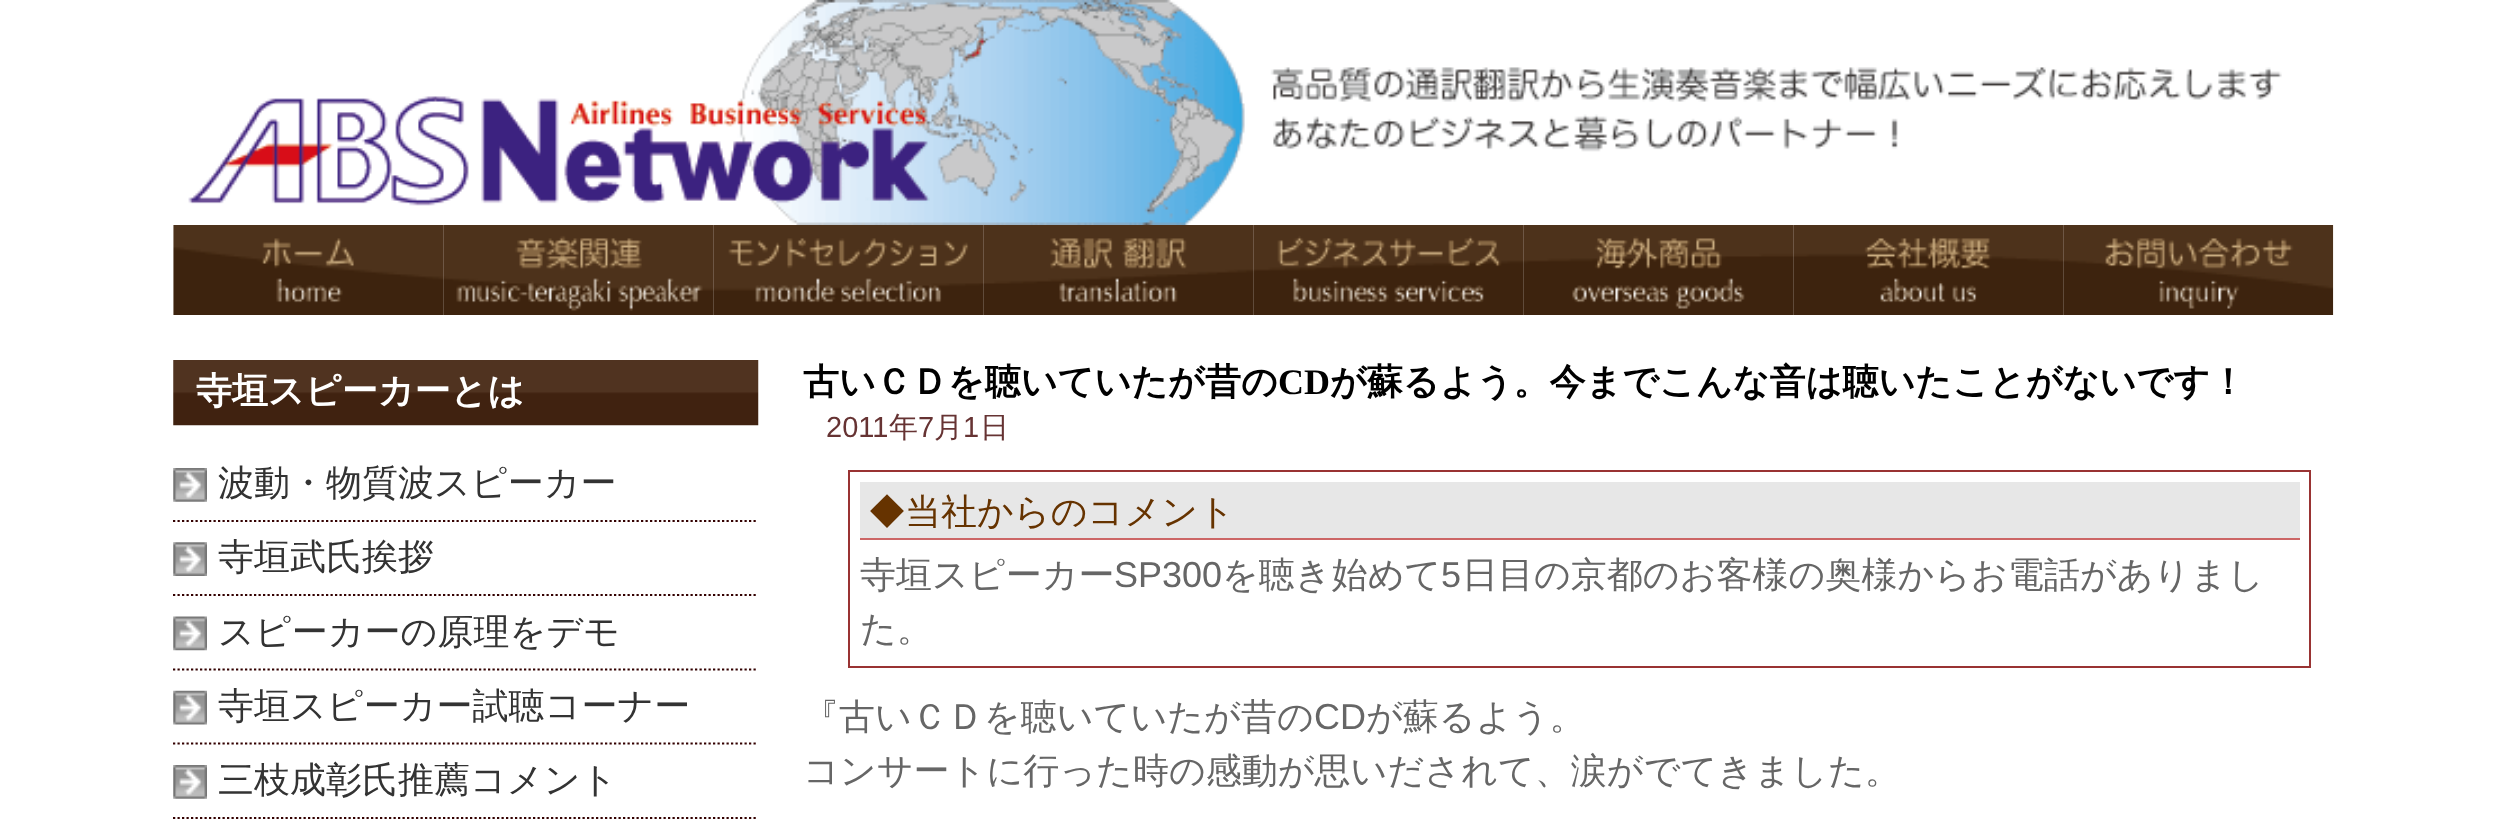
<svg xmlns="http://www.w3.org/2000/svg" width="2506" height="819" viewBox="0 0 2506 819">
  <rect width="100%" height="100%" fill="rgb(255,255,255)"/>
  <image x="188" y="0" width="2094" height="225" href="pic1.png"/>
  <image x="173" y="225" width="271" height="90" href="pic2.png"/>
  <image x="443" y="225" width="271" height="90" href="pic3.png"/>
  <image x="713" y="225" width="271" height="90" href="pic4.png"/>
  <image x="983" y="225" width="271" height="90" href="pic5.png"/>
  <image x="1253" y="225" width="271" height="90" href="pic6.png"/>
  <image x="1523" y="225" width="271" height="90" href="pic7.png"/>
  <image x="1793" y="225" width="271" height="90" href="pic8.png"/>
  <image x="2063" y="225" width="271" height="90" href="pic9.png"/>
  <image x="173" y="360" width="586" height="66" href="pic10.png"/>
  <text x="196" y="403" font-family="WenQuanYi Zen Hei" font-size="36" font-weight="bold" fill="rgb(255,255,255)">寺垣スピーカーとは</text>
  <image x="173" y="468" width="34" height="34" href="pic11.png"/>
  <path d="M173 521H758" fill="none" stroke="rgb(51,0,0)" stroke-width="2.2" stroke-dasharray="2.25 2.25"/>
  <text x="218" y="495" font-family="WenQuanYi Zen Hei" font-size="36" font-weight="500" fill="rgb(51,51,51)">波動・物質波スピーカー</text>
  <image x="173" y="542" width="34" height="34" href="pic12.png"/>
  <path d="M173 595H758" fill="none" stroke="rgb(51,0,0)" stroke-width="2.2" stroke-dasharray="2.25 2.25"/>
  <text x="218" y="569" font-family="WenQuanYi Zen Hei" font-size="36" font-weight="500" fill="rgb(51,51,51)">寺垣武氏挨拶</text>
  <image x="173" y="616" width="34" height="35" href="pic13.png"/>
  <path d="M173 669.5H758" fill="none" stroke="rgb(51,0,0)" stroke-width="2.2" stroke-dasharray="2.25 2.25"/>
  <text x="218" y="644" font-family="WenQuanYi Zen Hei" font-size="36" font-weight="500" fill="rgb(51,51,51)">スピーカーの原理をデモ</text>
  <image x="173" y="690" width="34" height="35" href="pic14.png"/>
  <path d="M173 743.5H758" fill="none" stroke="rgb(51,0,0)" stroke-width="2.2" stroke-dasharray="2.25 2.25"/>
  <text x="218" y="718" font-family="WenQuanYi Zen Hei" font-size="36" font-weight="500" fill="rgb(51,51,51)">寺垣スピーカー試聴コーナー</text>
  <image x="173" y="765" width="34" height="34" href="pic15.png"/>
  <path d="M173 818H758" fill="none" stroke="rgb(51,0,0)" stroke-width="2.2" stroke-dasharray="2.25 2.25"/>
  <text x="218" y="792" font-family="WenQuanYi Zen Hei" font-size="36" font-weight="500" fill="rgb(51,51,51)">三枝成彰氏推薦コメント</text>
  <text x="803" y="394" font-family="WenQuanYi Zen Hei" font-size="36" font-weight="bold" fill="rgb(0,0,0)">古いＣＤを聴いていたが昔の</text>
  <text x="1278" y="394" font-family="Liberation Serif" font-size="36" font-weight="bold" fill="rgb(0,0,0)">CD</text>
  <text x="1330" y="394" font-family="WenQuanYi Zen Hei" font-size="36" font-weight="bold" fill="rgb(0,0,0)">が蘇るよう。今までこんな音は聴いたことがないです！</text>
  <text x="826" y="437" font-family="Liberation Sans" font-size="29" fill="rgb(102,51,51)">2011</text>
  <text x="889" y="437" font-family="WenQuanYi Zen Hei" font-size="29" font-weight="500" fill="rgb(102,51,51)">年</text>
  <text x="918" y="437" font-family="Liberation Sans" font-size="29" fill="rgb(102,51,51)">7</text>
  <text x="934" y="437" font-family="WenQuanYi Zen Hei" font-size="29" font-weight="500" fill="rgb(102,51,51)">月</text>
  <text x="963" y="437" font-family="Liberation Sans" font-size="29" fill="rgb(102,51,51)">1</text>
  <text x="980" y="437" font-family="WenQuanYi Zen Hei" font-size="29" font-weight="500" fill="rgb(102,51,51)">日</text>
  <rect x="849" y="471" width="1461" height="196" fill="none" stroke="rgb(153,51,51)" stroke-width="2"/>
  <rect x="860" y="482" width="1440" height="56" fill="rgb(231,231,231)"/>
  <rect x="860" y="538" width="1440" height="2" fill="rgb(204,102,102)"/>
  <text x="869" y="524" font-family="WenQuanYi Zen Hei" font-size="36" font-weight="500" fill="rgb(102,51,0)">◆当社からのコメント</text>
  <text x="860" y="587" font-family="WenQuanYi Zen Hei" font-size="36" font-weight="500" fill="rgb(102,102,102)">寺垣スピーカー</text>
  <text x="1114" y="587" font-family="Liberation Sans" font-size="36" fill="rgb(102,102,102)">SP300</text>
  <text x="1222" y="587" font-family="WenQuanYi Zen Hei" font-size="36" font-weight="500" fill="rgb(102,102,102)">を聴き始めて</text>
  <text x="1441" y="587" font-family="Liberation Sans" font-size="36" fill="rgb(102,102,102)">5</text>
  <g font-family="WenQuanYi Zen Hei" font-size="36" font-weight="500" fill="rgb(102,102,102)">
    <text x="1462" y="587">日目の京都のお客様の奥様からお電話がありまし</text>
    <text x="860" y="641">た。</text>
    <text x="803" y="729">『古いＣＤを聴いていたが昔の</text>
  </g>
  <text x="1314" y="729" font-family="Liberation Sans" font-size="36" fill="rgb(102,102,102)">CD</text>
  <g font-family="WenQuanYi Zen Hei" font-size="36" font-weight="500" fill="rgb(102,102,102)">
    <text x="1366" y="729">が蘇るよう。</text>
    <text x="803" y="783">コンサートに行った時の感動が思いだされて、涙がでてきました。</text>
  </g>
</svg>
